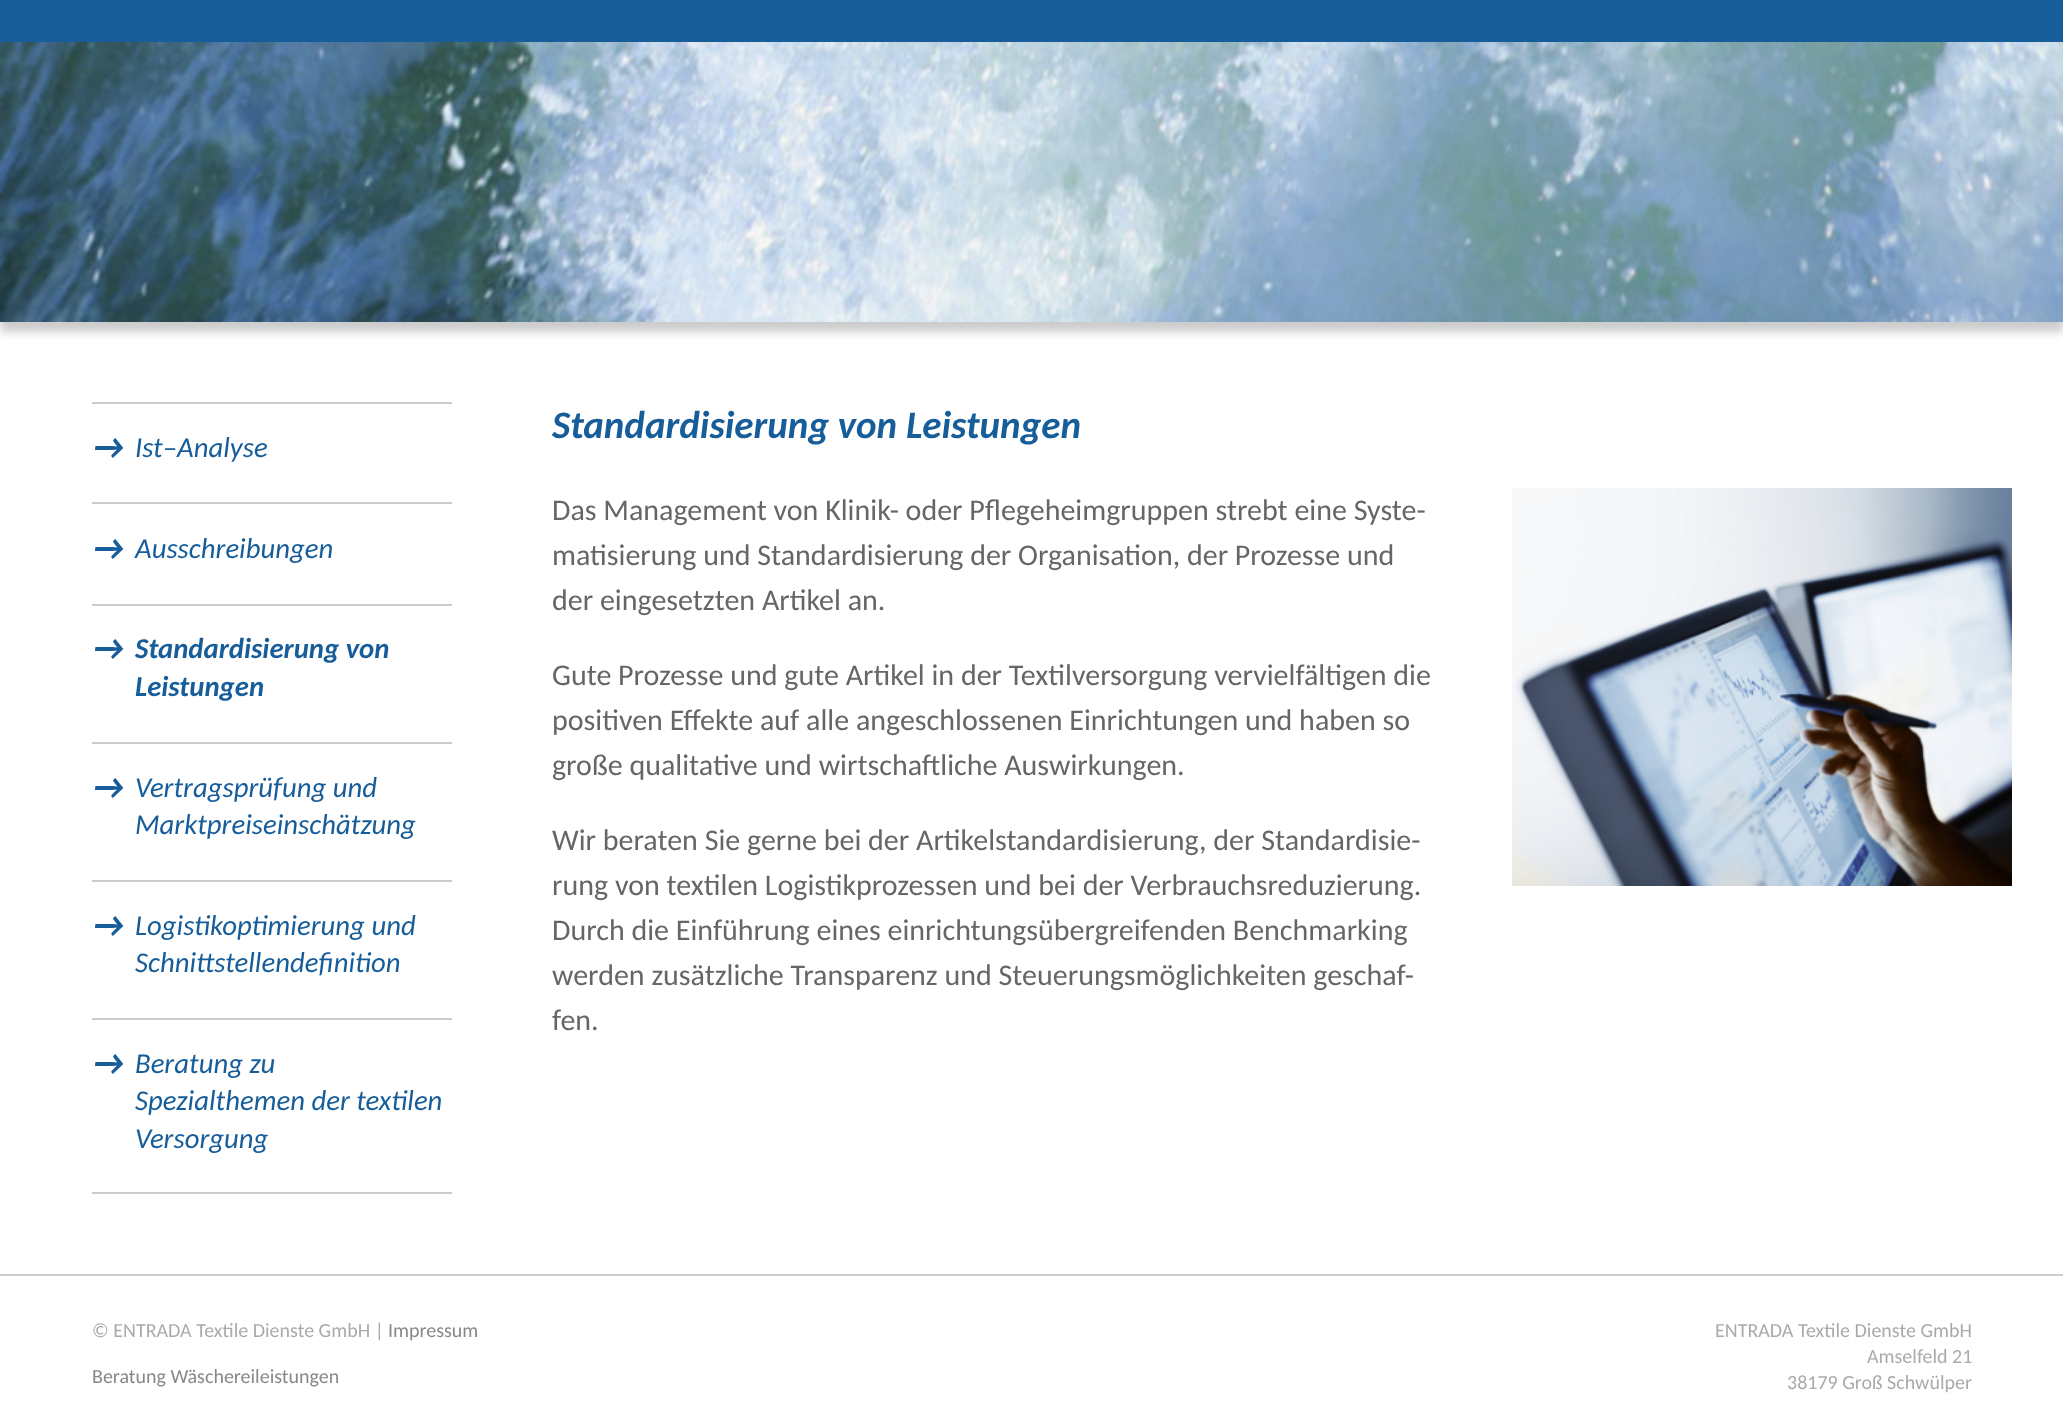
<svg xmlns="http://www.w3.org/2000/svg" width="2063" height="1404" viewBox="0 0 2063 1404">
  <rect width="100%" height="100%" fill="rgb(255,255,255)"/>
  <rect x="0" y="-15" width="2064" height="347" fill="rgb(204,204,204)" filter="blur(5px)"/>
  <rect x="0" y="0" width="2063" height="42" fill="rgb(22,93,154)"/>
  <image x="0" y="42" width="2063" height="280" href="pic1.png"/>
  <rect x="92" y="402" width="360" height="2" fill="rgb(204,204,204)"/>
  <rect x="92" y="502" width="360" height="2" fill="rgb(204,204,204)"/>
  <text x="92" y="459" font-family="Carlito" font-size="36" font-weight="bold" font-style="italic" fill="rgb(22,93,154)">→</text>
  <text x="135" y="457" font-family="Carlito" font-size="28.75" font-style="italic" fill="rgb(22,93,154)">Ist–Analyse</text>
  <rect x="92" y="604" width="360" height="2" fill="rgb(204,204,204)"/>
  <text x="92" y="560" font-family="Carlito" font-size="36" font-weight="bold" font-style="italic" fill="rgb(22,93,154)">→</text>
  <text x="135" y="558" font-family="Carlito" font-size="28.75" font-style="italic" fill="rgb(22,93,154)">Ausschreibungen</text>
  <rect x="92" y="742" width="360" height="2" fill="rgb(204,204,204)"/>
  <text x="92" y="660" font-family="Carlito" font-size="36" font-weight="bold" font-style="italic" fill="rgb(22,93,154)">→</text>
  <g font-family="Carlito" font-size="28.75" font-weight="bold" font-style="italic" fill="rgb(22,93,154)">
    <text>
      <tspan x="135" y="658">Standardisierung von</tspan>
      <tspan x="135" y="696">Leistungen</tspan>
    </text>
  </g>
  <rect x="92" y="880" width="360" height="2" fill="rgb(204,204,204)"/>
  <text x="92" y="799" font-family="Carlito" font-size="36" font-weight="bold" font-style="italic" fill="rgb(22,93,154)">→</text>
  <g font-family="Carlito" font-size="28.75" font-style="italic" fill="rgb(22,93,154)">
    <text>
      <tspan x="135" y="797">Vertragsprüfung und</tspan>
      <tspan x="135" y="834">Marktpreiseinschätzung</tspan>
    </text>
  </g>
  <rect x="92" y="1018" width="360" height="2" fill="rgb(204,204,204)"/>
  <text x="92" y="937" font-family="Carlito" font-size="36" font-weight="bold" font-style="italic" fill="rgb(22,93,154)">→</text>
  <g font-family="Carlito" font-size="28.75" font-style="italic" fill="rgb(22,93,154)">
    <text>
      <tspan x="135" y="935">Logistikoptimierung und</tspan>
      <tspan x="135" y="972">Schnittstellendefinition</tspan>
    </text>
  </g>
  <rect x="92" y="1192" width="360" height="2" fill="rgb(204,204,204)"/>
  <text x="92" y="1075" font-family="Carlito" font-size="36" font-weight="bold" font-style="italic" fill="rgb(22,93,154)">→</text>
  <g font-family="Carlito" font-size="28.75" font-style="italic" fill="rgb(22,93,154)">
    <text>
      <tspan x="135" y="1073">Beratung zu</tspan>
      <tspan x="135" y="1110">Spezialthemen der textilen</tspan>
      <tspan x="135" y="1148">Versorgung</tspan>
    </text>
  </g>
  <text x="552" y="438" font-family="Carlito" font-size="39" font-weight="bold" font-style="italic" fill="rgb(22,93,154)">Standardisierung von Leistungen</text>
  <text x="552" y="520" font-family="Carlito" font-size="30" fill="rgb(102,102,102)">Das Management von Klinik- oder Pflegeheimgruppen strebt eine Syste-</text>
  <image x="1512" y="488" width="500" height="398" href="pic2.png"/>
  <g font-family="Carlito" font-size="30" fill="rgb(102,102,102)">
    <text>
      <tspan x="552" y="565">matisierung und Standardisierung der Organisation, der Prozesse und</tspan>
      <tspan x="552" y="610">der eingesetzten Artikel an.</tspan>
    </text>
    <text>
      <tspan x="552" y="685">Gute Prozesse und gute Artikel in der Textilversorgung vervielfältigen die</tspan>
      <tspan x="552" y="730">positiven Effekte auf alle angeschlossenen Einrichtungen und haben so</tspan>
      <tspan x="552" y="775">große qualitative und wirtschaftliche Auswirkungen.</tspan>
    </text>
    <text>
      <tspan x="552" y="850">Wir beraten Sie gerne bei der Artikelstandardisierung, der Standardisie-</tspan>
      <tspan x="552" y="895">rung von textilen Logistikprozessen und bei der Verbrauchsreduzierung.</tspan>
      <tspan x="552" y="940">Durch die Einführung eines einrichtungsübergreifenden Benchmarking</tspan>
      <tspan x="552" y="985">werden zusätzliche Transparenz und Steuerungsmöglichkeiten geschaf-</tspan>
      <tspan x="552" y="1030">fen.</tspan>
    </text>
  </g>
  <rect x="0" y="1274" width="2063" height="2" fill="rgb(204,204,204)"/>
  <text x="92" y="1337" font-family="Carlito" font-size="20" fill="rgb(170,170,170)">© ENTRADA Textile Dienste GmbH |</text>
  <text x="388" y="1337" font-family="Carlito" font-size="20" fill="rgb(136,136,136)">Impressum</text>
  <g font-family="Carlito" font-size="20" fill="rgb(170,170,170)">
    <text x="1715" y="1337">ENTRADA Textile Dienste GmbH</text>
    <text x="1867" y="1363">Amselfeld 21</text>
    <text x="1787" y="1389">38179 Groß Schwülper</text>
  </g>
  <text x="92" y="1383" font-family="Carlito" font-size="20" fill="rgb(136,136,136)">Beratung Wäschereileistungen</text>
</svg>
